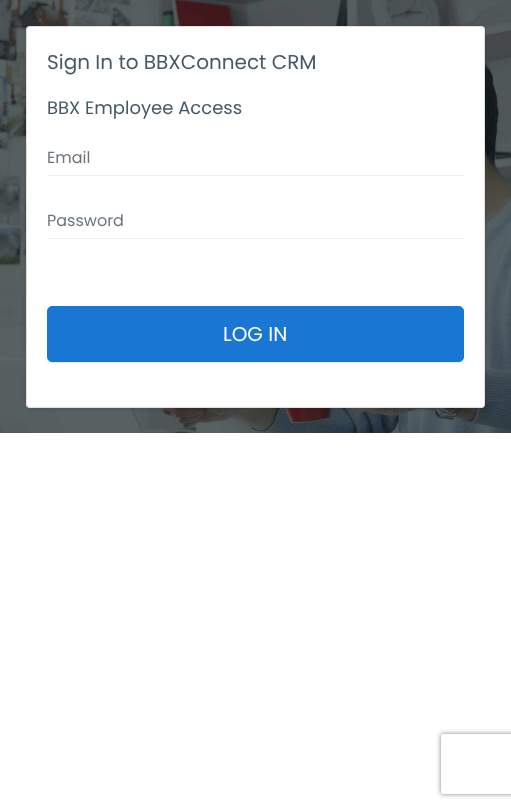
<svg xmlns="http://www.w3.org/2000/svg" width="511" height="808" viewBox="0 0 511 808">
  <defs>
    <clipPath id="clip1"><rect x="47" y="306" width="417" height="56"/></clipPath>
    <clipPath id="clip2"><path d="M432 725H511V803H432ZM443 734H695C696 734 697 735 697 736V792C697 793 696 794 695 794H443C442 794 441 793 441 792V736C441 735 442 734 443 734Z" clip-rule="evenodd"/></clipPath>
  </defs>
  <rect width="100%" height="100%" fill="rgb(255,255,255)"/>
  <image x="0" y="0" width="511" height="433" href="pic1.png"/>
  <rect x="26" y="27" width="459" height="382" rx="4" fill="rgba(0,0,0,0.1)" filter="blur(2px)"/>
  <rect x="26" y="26" width="459" height="382" rx="4" fill="rgb(255,255,255)"/>
  <rect x="26.5" y="26.5" width="458" height="381" rx="3.5" fill="none" stroke="rgba(0,0,0,0.12)"/>
  <text x="47" y="69" font-family="Poppins" font-size="20" fill="rgb(69,90,100)">Sign In to BBXConnect CRM</text>
  <text x="47" y="114" font-family="Poppins" font-size="18" fill="rgb(69,90,100)">BBX Employee Access</text>
  <rect x="47" y="175" width="417" height="1" fill="rgb(237,239,240)"/>
  <text x="47" y="163" font-family="Poppins" font-size="16" fill="rgb(108,117,125)">Email</text>
  <rect x="47" y="238" width="417" height="1" fill="rgb(237,239,240)"/>
  <text x="47" y="226" font-family="Poppins" font-size="16" fill="rgb(108,117,125)">Password</text>
  <g clip-path="url(#clip1)">
    <rect x="47" y="307" width="417" height="56" rx="5" fill="rgba(66,165,245,0.12)" filter="blur(2.5px)"/>
  </g>
  <rect x="49" y="311" width="413" height="52" rx="3" fill="rgba(66,165,245,0.2)" filter="blur(0.5px)"/>
  <g clip-path="url(#clip1)">
    <rect x="47" y="308" width="417" height="56" rx="5" fill="rgba(66,165,245,0.14)" filter="blur(1px)"/>
  </g>
  <rect x="47.5" y="306.5" width="416" height="55" rx="4.5" fill="rgb(25,118,210)" stroke="rgb(25,118,210)"/>
  <text x="223" y="341" font-family="Poppins" font-size="20" fill="rgb(255,255,255)">LOG IN</text>
  <g clip-path="url(#clip2)">
    <rect x="441" y="734" width="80" height="60" rx="2" fill="rgb(128,128,128)" filter="blur(2.5px)"/>
  </g>
</svg>
